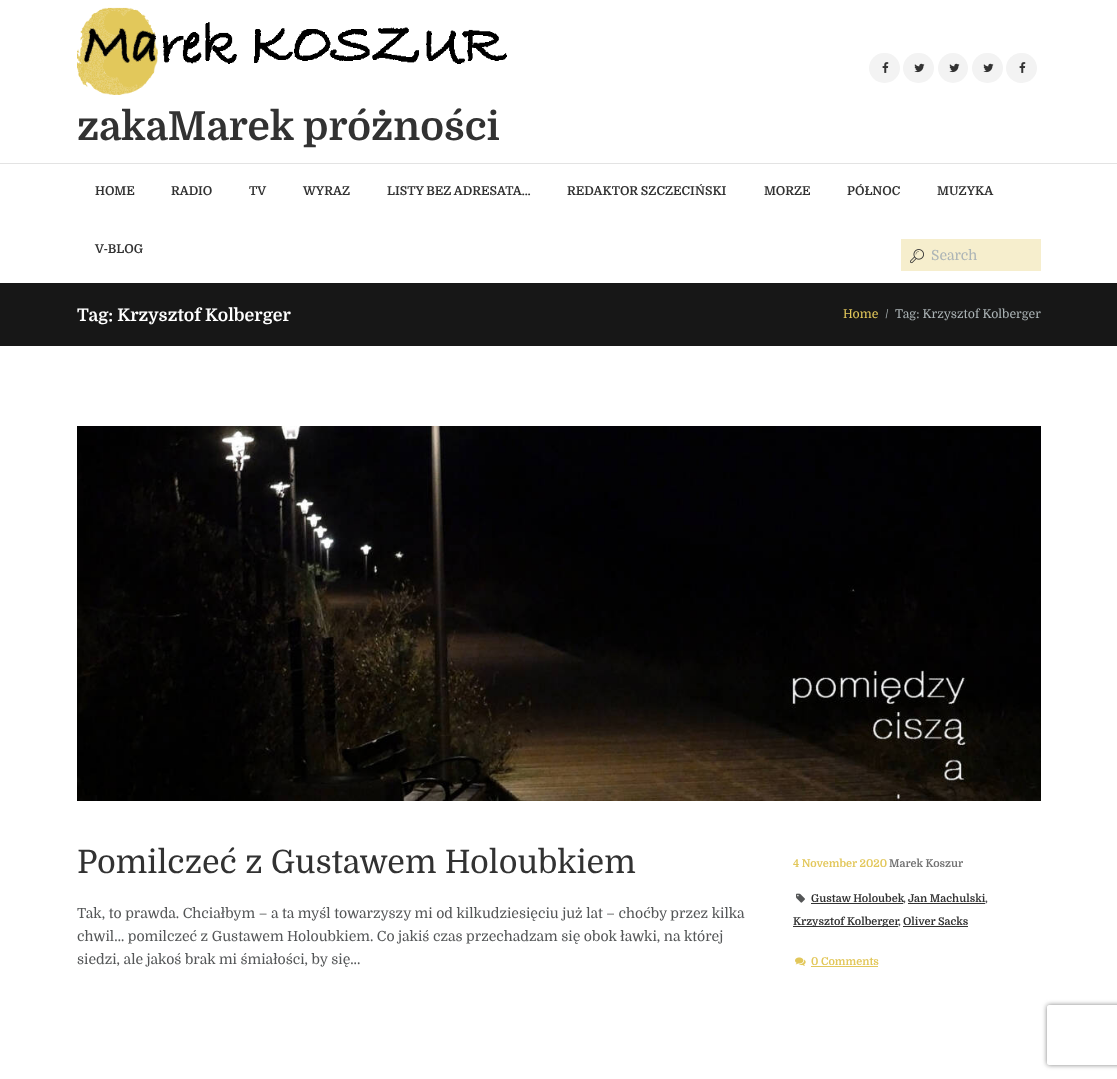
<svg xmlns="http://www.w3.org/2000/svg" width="1117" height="1079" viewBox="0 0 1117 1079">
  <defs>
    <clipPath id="clip1"><path d="M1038 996H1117V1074H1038ZM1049 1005H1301C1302 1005 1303 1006 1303 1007V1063C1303 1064 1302 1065 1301 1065H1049C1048 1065 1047 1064 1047 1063V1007C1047 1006 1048 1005 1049 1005Z" clip-rule="evenodd"/></clipPath>
  </defs>
  <rect width="100%" height="100%" fill="rgb(255,255,255)"/>
  <rect x="869" y="53" width="31" height="30" rx="15" fill="rgb(243,243,243)"/>
  <image x="882" y="62" width="7" height="11" href="pic1.png"/>
  <rect x="903" y="53" width="31" height="30" rx="15" fill="rgb(243,243,243)"/>
  <image x="914" y="63" width="11" height="10" href="pic2.png"/>
  <circle cx="953" cy="68" r="15" fill="rgb(243,243,243)"/>
  <image x="949" y="63" width="11" height="10" href="pic2.png"/>
  <rect x="972" y="53" width="31" height="30" rx="15" fill="rgb(243,243,243)"/>
  <image x="983" y="63" width="11" height="10" href="pic2.png"/>
  <rect x="1006" y="53" width="31" height="30" rx="15" fill="rgb(243,243,243)"/>
  <image x="1019" y="62" width="7" height="11" href="pic1.png"/>
  <image x="77" y="7" width="430" height="88" href="pic3.png"/>
  <text x="77" y="140" font-family="Domine" font-size="40" font-weight="bold" fill="rgb(50,50,50)">zakaMarek próżności</text>
  <rect x="0" y="163" width="1117" height="1" fill="rgb(227,227,227)"/>
  <g font-family="Domine" font-size="12.25" font-weight="bold" fill="rgb(50,50,50)">
    <text x="95" y="195">HOME</text>
    <text x="171" y="195">RADIO</text>
    <text x="249" y="195">TV</text>
    <text x="303" y="195">WYRAZ</text>
    <text x="387" y="195">LISTY BEZ ADRESATA…</text>
    <text x="567" y="195">REDAKTOR SZCZECIŃSKI</text>
    <text x="764" y="195">MORZE</text>
    <text x="847" y="195">PÓŁNOC</text>
    <text x="937" y="195">MUZYKA</text>
    <text x="95" y="253">V-BLOG</text>
  </g>
  <rect x="901" y="239" width="140" height="32" fill="rgb(246,238,205)"/>
  <image x="910" y="249" width="14" height="15" href="pic4.png"/>
  <text x="931" y="260" font-family="Domine" font-size="14" fill="rgb(172,180,182)">Search</text>
  <rect x="0" y="283" width="1117" height="63" fill="rgb(23,23,23)"/>
  <text x="77" y="321" font-family="Domine" font-size="17.5" font-weight="bold" fill="rgb(255,255,255)">Tag: Krzysztof Kolberger</text>
  <text x="843" y="318" font-family="Domine" font-size="12.25" fill="rgb(226,199,90)">Home</text>
  <g font-family="Domine" font-size="12.25" fill="rgb(172,180,182)">
    <text x="885" y="318">/</text>
    <text x="895" y="318">Tag: Krzysztof Kolberger</text>
  </g>
  <image x="77" y="426" width="964" height="375" href="pic5.png"/>
  <text x="77" y="873" font-family="Domine" font-size="32.3" fill="rgb(50,50,50)">Pomilczeć z Gustawem Holoubkiem</text>
  <g font-family="Domine" font-size="14" fill="rgb(84,86,87)">
    <text>
      <tspan x="77" y="918">Tak, to prawda. Chciałbym – a ta myśl towarzyszy mi od kilkudziesięciu już lat – choćby przez kilka</tspan>
      <tspan x="77" y="941">chwil… pomilczeć z Gustawem Holoubkiem. Co jakiś czas przechadzam się obok ławki, na której</tspan>
      <tspan x="77" y="964">siedzi, ale jakoś brak mi śmiałości, by się...</tspan>
    </text>
  </g>
  <text x="793" y="867" font-family="Domine" font-size="10.75" font-weight="bold" fill="rgb(226,199,90)">4 November 2020</text>
  <text x="889" y="867" font-family="Domine" font-size="10.75" font-weight="bold" fill="rgb(114,114,114)">Marek Koszur</text>
  <image x="796" y="893" width="9" height="10" href="pic6.png"/>
  <text x="811" y="902" font-family="Domine" font-size="10.75" font-weight="bold" fill="rgb(50,50,50)">Gustaw Holoubek</text>
  <rect x="811" y="903" width="92" height="1" fill="rgb(50,50,50)"/>
  <text x="903" y="902" font-family="Domine" font-size="10.75" font-weight="bold" fill="rgb(84,86,87)">,</text>
  <text x="908" y="902" font-family="Domine" font-size="10.75" font-weight="bold" fill="rgb(50,50,50)">Jan Machulski</text>
  <rect x="908" y="903" width="77" height="1" fill="rgb(50,50,50)"/>
  <text x="985" y="902" font-family="Domine" font-size="10.75" font-weight="bold" fill="rgb(84,86,87)">,</text>
  <rect x="793" y="926" width="105" height="1" fill="rgb(50,50,50)"/>
  <text x="793" y="925" font-family="Domine" font-size="10.75" font-weight="bold" fill="rgb(50,50,50)">Krzysztof Kolberger</text>
  <text x="898" y="925" font-family="Domine" font-size="10.75" font-weight="bold" fill="rgb(84,86,87)">,</text>
  <text x="903" y="925" font-family="Domine" font-size="10.75" font-weight="bold" fill="rgb(50,50,50)">Oliver Sacks</text>
  <rect x="903" y="926" width="65" height="1" fill="rgb(50,50,50)"/>
  <image x="795" y="957" width="11" height="9" href="pic7.png"/>
  <text x="811" y="965" font-family="Domine" font-size="10.75" font-weight="bold" fill="rgb(226,199,90)">0 Comments</text>
  <rect x="811" y="966" width="67" height="1" fill="rgb(226,199,90)"/>
  <g clip-path="url(#clip1)">
    <rect x="1047" y="1005" width="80" height="60" rx="2" fill="rgb(128,128,128)" filter="blur(2.5px)"/>
  </g>
</svg>
